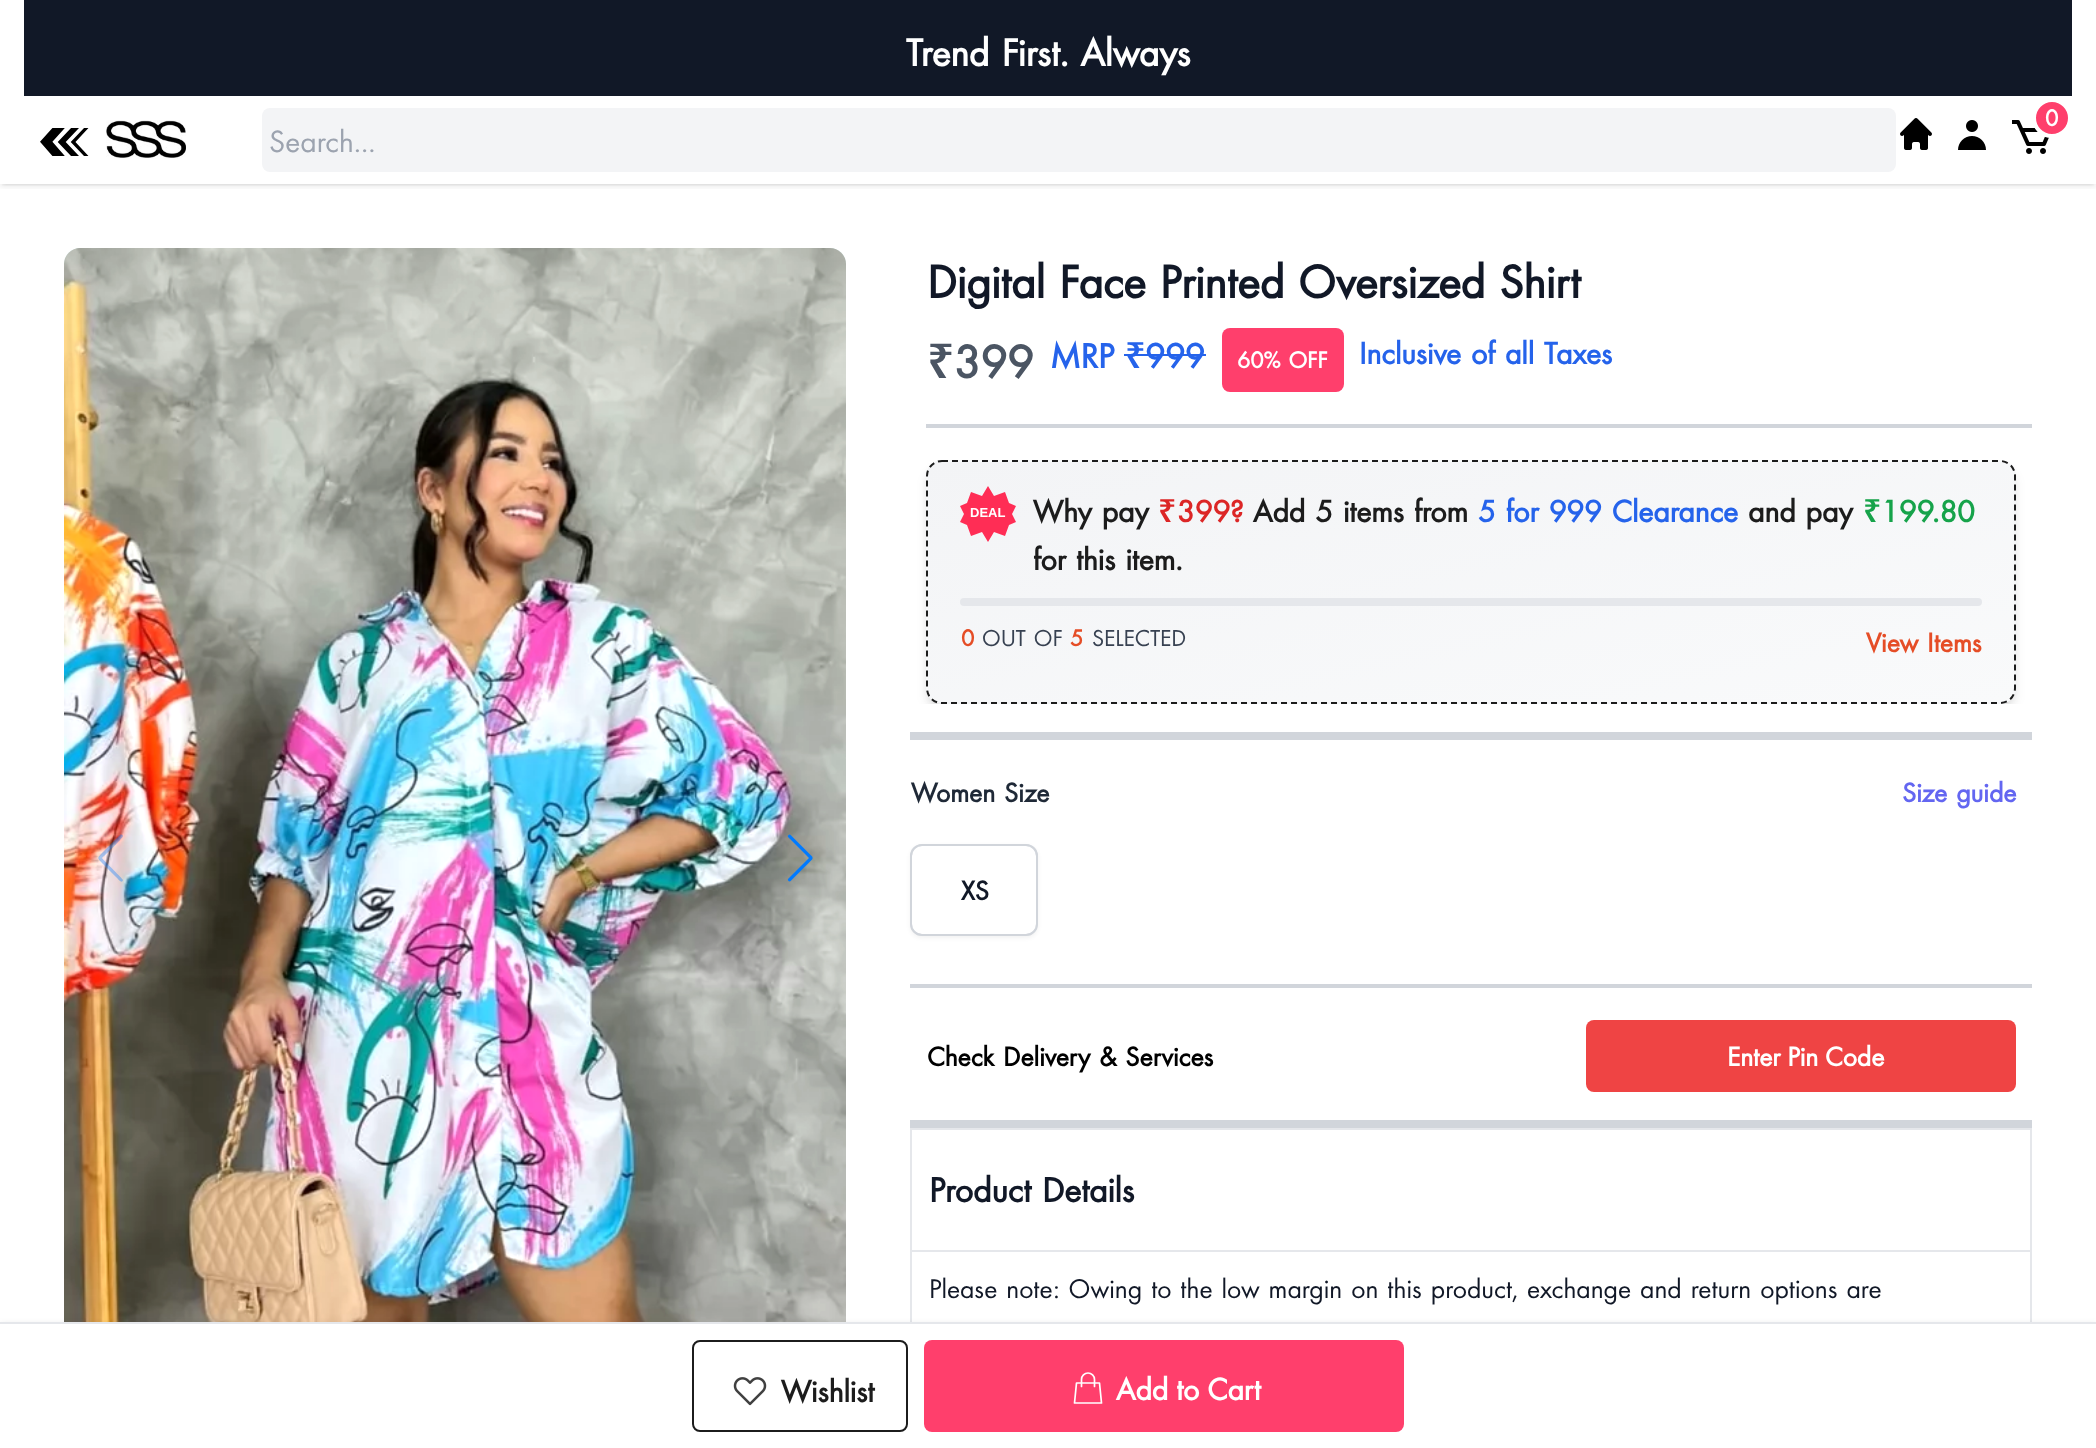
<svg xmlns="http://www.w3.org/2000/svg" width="2096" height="1448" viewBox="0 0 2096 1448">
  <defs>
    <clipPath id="clip1"><rect x="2" y="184" width="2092" height="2"/></clipPath>
    <clipPath id="clip2"><rect x="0" y="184" width="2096" height="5"/></clipPath>
    <clipPath id="clip3"><rect x="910" y="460" width="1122" height="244"/></clipPath>
    <clipPath id="clip4"><rect x="926" y="460" width="1090" height="244" rx="16"/></clipPath>
    <linearGradient id="g1" gradientUnits="userSpaceOnUse" x1="1420" y1="113" x2="1522" y2="571"><stop offset="0" stop-color="rgb(243,244,246)"/><stop offset="1" stop-color="rgb(249,250,251)"/></linearGradient>
    <linearGradient id="g2" gradientUnits="userSpaceOnUse" x1="334" y1="353" x2="436" y2="811"><stop offset="0" stop-color="rgb(243,244,246)"/><stop offset="1" stop-color="rgb(249,250,251)"/></linearGradient>
    <linearGradient id="g3" gradientUnits="userSpaceOnUse" x1="1420" y1="353" x2="1522" y2="811"><stop offset="0" stop-color="rgb(243,244,246)"/><stop offset="1" stop-color="rgb(249,250,251)"/></linearGradient>
    <linearGradient id="g4" gradientUnits="userSpaceOnUse" x1="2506" y1="353" x2="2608" y2="811"><stop offset="0" stop-color="rgb(243,244,246)"/><stop offset="1" stop-color="rgb(249,250,251)"/></linearGradient>
    <linearGradient id="g5" gradientUnits="userSpaceOnUse" x1="1420" y1="593" x2="1522" y2="1051"><stop offset="0" stop-color="rgb(243,244,246)"/><stop offset="1" stop-color="rgb(249,250,251)"/></linearGradient>
  </defs>
  <rect width="100%" height="100%" fill="rgb(255,255,255)"/>
  <g clip-path="url(#clip1)">
    <rect x="2" y="4" width="2092" height="180" fill="rgba(0,0,0,0.1)" filter="blur(2px)"/>
  </g>
  <g clip-path="url(#clip2)">
    <rect x="0" y="2" width="2096" height="184" fill="rgba(0,0,0,0.1)" filter="blur(3px)"/>
  </g>
  <rect x="24" y="0" width="2048" height="96" fill="rgb(17,24,39)"/>
  <text x="906" y="66" word-spacing="2" font-family="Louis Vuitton" font-size="40" font-weight="bold" fill="rgb(255,255,255)">Trend First. Always</text>
  <image x="1900" y="118" width="32" height="32" href="pic1.png"/>
  <image x="1958" y="120" width="28" height="30" href="pic2.png"/>
  <image x="2012" y="120" width="38" height="34" href="pic3.png"/>
  <circle cx="2052" cy="118" r="18" fill="rgb(255,63,108)" stroke="rgb(255,255,255)" stroke-width="4"/>
  <text x="2045" y="126" font-family="Louis Vuitton" font-size="24" font-weight="bold" fill="rgb(255,255,255)">0</text>
  <image x="40" y="128" width="49" height="28" href="pic4.png"/>
  <image x="106" y="120" width="80" height="39" href="pic5.png"/>
  <rect x="262" y="108" width="1634" height="64" rx="8" fill="rgb(243,244,246)"/>
  <text x="269" y="152" font-family="Louis Vuitton" font-size="32" fill="rgb(156,163,175)">Search...</text>
  <path d="M80 248H830C839 248 846 255 846 264V1420H64V264C64 255 71 248 80 248Z" fill="rgb(237,255,255)"/>
  <image x="64" y="248" width="782" height="1074" href="pic6.png"/>
  <path d="M120 835C121 834 123 835 123 836C123 838 104 856 102 858C104 861 123 879 123 880C122 884 119 880 116 877L102 863C97 858 97 858 102 853Z" fill="rgba(0,122,255,0.35)"/>
  <image x="787" y="834" width="26" height="48" href="pic7.png"/>
  <text x="927" y="298" word-spacing="2" font-family="Louis Vuitton" font-size="48" font-weight="bold" fill="rgb(17,24,39)">Digital Face Printed Oversized Shirt</text>
  <rect x="926" y="424" width="1106" height="4" fill="rgb(209,213,219)"/>
  <text x="927" y="378" font-family="Noto Sans" font-size="48" font-weight="600" fill="rgb(75,85,99)">₹</text>
  <text x="954" y="378" font-family="Louis Vuitton" font-size="48" font-weight="bold" fill="rgb(75,85,99)">399</text>
  <text x="1050" y="368" font-family="Louis Vuitton" font-size="36" font-weight="bold" fill="rgb(37,99,235)">MRP</text>
  <text x="1125" y="368" font-family="Noto Sans" font-size="36" font-weight="600" fill="rgb(37,99,235)">₹</text>
  <rect x="1124" y="354" width="82" height="2" fill="rgb(37,99,235)"/>
  <text x="1145" y="368" font-family="Louis Vuitton" font-size="36" font-weight="bold" fill="rgb(37,99,235)">999</text>
  <rect x="1222" y="328" width="122" height="64" rx="8" fill="rgb(255,63,108)"/>
  <text x="1237" y="368" word-spacing="2" font-family="Louis Vuitton" font-size="24" font-weight="bold" fill="rgb(255,255,255)">60% OFF</text>
  <text x="1359" y="364" word-spacing="2" font-family="Louis Vuitton" font-size="32" font-weight="bold" fill="rgb(37,99,235)">Inclusive of all Taxes</text>
  <rect x="910" y="732" width="1122" height="8" fill="rgb(209,213,219)"/>
  <g clip-path="url(#clip3)">
    <rect x="930" y="468" width="1082" height="236" rx="12" fill="rgba(0,0,0,0.1)" filter="blur(4px)"/>
    <rect x="928" y="470" width="1086" height="240" rx="14" fill="rgba(0,0,0,0.1)" filter="blur(6px)"/>
  </g>
  <g clip-path="url(#clip4)">
    <rect x="928" y="460" width="1086" height="2" fill="url(#g1)"/>
    <rect x="926" y="462" width="2" height="240" fill="url(#g2)"/>
    <rect x="928" y="462" width="1086" height="240" fill="url(#g3)"/>
    <rect x="2014" y="462" width="2" height="240" fill="url(#g4)"/>
    <rect x="928" y="702" width="1086" height="2" fill="url(#g5)"/>
  </g>
  <path d="M942 461H2000C2008.5 461 2015 467.5 2015 476V688C2015 696.5 2008.5 703 2000 703H942C933.5 703 927 696.5 927 688V476C927 467.5 933.5 461 942 461Z" fill="none" stroke="rgb(28,28,28)" stroke-width="2" stroke-dasharray="6 4"/>
  <path d="M988 486L994 496L1005 492L1009 503L1016 506L1012 514L1016 522L1009 525L1005 536L994 532L988 542L982 532L971 536L967 525L960 522L964 514L960 506L967 503L971 492L982 496Z" fill="rgb(255,45,85)"/>
  <text x="970" y="517" font-family="Liberation Sans" font-size="13" font-weight="bold" fill="rgb(255,255,255)">DEAL</text>
  <text x="1033" y="522" word-spacing="2" font-family="Louis Vuitton" font-size="32" font-weight="bold" fill="rgb(28,28,28)">Why pay</text>
  <text x="1158" y="522" font-family="Noto Sans" font-size="32" font-weight="600" fill="rgb(220,38,38)">₹</text>
  <text x="1177" y="522" font-family="Louis Vuitton" font-size="32" font-weight="bold" fill="rgb(220,38,38)">399?</text>
  <text x="1253" y="522" word-spacing="2" font-family="Louis Vuitton" font-size="32" font-weight="bold" fill="rgb(28,28,28)">Add 5 items from</text>
  <text x="1478" y="522" word-spacing="2" font-family="Louis Vuitton" font-size="32" font-weight="bold" fill="rgb(37,99,235)">5 for 999 Clearance</text>
  <text x="1748" y="522" word-spacing="2" font-family="Louis Vuitton" font-size="32" font-weight="bold" fill="rgb(28,28,28)">and pay</text>
  <text x="1863" y="522" font-family="Noto Sans" font-size="32" font-weight="600" fill="rgb(22,163,74)">₹</text>
  <text x="1881" y="522" font-family="Louis Vuitton" font-size="32" font-weight="bold" fill="rgb(22,163,74)">199.80</text>
  <text x="1033" y="570" word-spacing="2" font-family="Louis Vuitton" font-size="32" font-weight="bold" fill="rgb(28,28,28)">for this item.</text>
  <rect x="960" y="598" width="1022" height="8" rx="4" fill="rgb(229,231,235)"/>
  <text x="961" y="646" font-family="Louis Vuitton" font-size="24" font-weight="bold" fill="rgb(229,77,38)">0</text>
  <text x="982" y="646" word-spacing="2" font-family="Louis Vuitton" font-size="24" fill="rgb(55,65,81)">OUT OF</text>
  <text x="1070" y="646" font-family="Louis Vuitton" font-size="24" font-weight="bold" fill="rgb(229,77,38)">5</text>
  <text x="1092" y="646" font-family="Louis Vuitton" font-size="24" fill="rgb(55,65,81)">SELECTED</text>
  <text x="1866" y="652" word-spacing="2" font-family="Louis Vuitton" font-size="28" font-weight="bold" fill="rgb(229,77,38)">View Items</text>
  <rect x="910" y="984" width="1122" height="4" fill="rgb(209,213,219)"/>
  <text x="911" y="802" word-spacing="2" font-family="Louis Vuitton" font-size="28" font-weight="bold" fill="rgb(31,41,55)">Women Size</text>
  <text x="1902" y="802" word-spacing="2" font-family="Louis Vuitton" font-size="28" font-weight="bold" fill="rgb(99,102,241)">Size guide</text>
  <rect x="910" y="846" width="128" height="92" rx="12" fill="rgba(0,0,0,0.05)" filter="blur(2px)"/>
  <rect x="911" y="845" width="126" height="90" rx="11" fill="rgb(255,255,255)" stroke="rgb(229,231,235)" stroke-width="2"/>
  <rect x="911" y="845" width="126" height="90" rx="11" fill="none" stroke="rgb(209,213,219)" stroke-width="2"/>
  <text x="961" y="900" font-family="Louis Vuitton" font-size="28" font-weight="bold" fill="rgb(17,24,39)">XS</text>
  <rect x="910" y="1120" width="1122" height="8" fill="rgb(209,213,219)"/>
  <text x="927" y="1066" word-spacing="2" font-family="Louis Vuitton" font-size="28" font-weight="bold" fill="rgb(0,0,0)">Check Delivery &amp; Services</text>
  <rect x="1586" y="1020" width="430" height="72" rx="8" fill="rgb(239,68,68)"/>
  <text x="1727" y="1066" font-family="Louis Vuitton" font-size="28" font-weight="bold" fill="rgb(255,255,255)">Enter Pin Code</text>
  <rect x="910" y="1128" width="1122" height="2" fill="rgb(229,231,235)"/>
  <rect x="2030" y="1128" width="2" height="194" fill="rgb(229,231,235)"/>
  <rect x="910" y="1128" width="2" height="194" fill="rgb(229,231,235)"/>
  <rect x="910" y="1250" width="1122" height="2" fill="rgb(229,231,235)"/>
  <text x="929" y="1202" word-spacing="2" font-family="Louis Vuitton" font-size="36" font-weight="bold" fill="rgb(17,24,39)">Product Details</text>
  <text x="929" y="1298" word-spacing="2" font-family="Louis Vuitton" font-size="28" fill="rgb(17,24,39)">Please note: Owing to the low margin on this product, exchange and return options are</text>
  <rect x="0" y="1324" width="2096" height="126" fill="rgba(0,0,0,0.1)" filter="blur(3px)"/>
  <rect x="0" y="1324" width="2096" height="124" fill="rgb(255,255,255)"/>
  <rect x="0" y="1322" width="2096" height="2" fill="rgb(229,231,235)"/>
  <rect x="693" y="1341" width="214" height="90" rx="7" fill="none" stroke="rgb(28,28,28)" stroke-width="2"/>
  <image x="733" y="1377" width="34" height="29" href="pic8.png"/>
  <text x="781" y="1402" font-family="Louis Vuitton" font-size="32" font-weight="bold" fill="rgb(28,28,28)">Wishlist</text>
  <rect x="924" y="1340" width="480" height="92" rx="8" fill="rgb(255,63,108)"/>
  <path d="M1094.5 1386.5V1379.5C1094.5 1376 1091.5 1373 1088 1373C1084.5 1373 1081.5 1376 1081.5 1379.5V1386.5M1076.5 1383H1099.5L1101.5 1403H1074.5Z" fill="none" stroke="rgb(255,255,255)" stroke-width="1.7" stroke-linecap="round" stroke-linejoin="round"/>
  <text x="1116" y="1400" font-family="Louis Vuitton" font-size="32" font-weight="bold" fill="rgb(255,255,255)">Add to Cart</text>
</svg>
